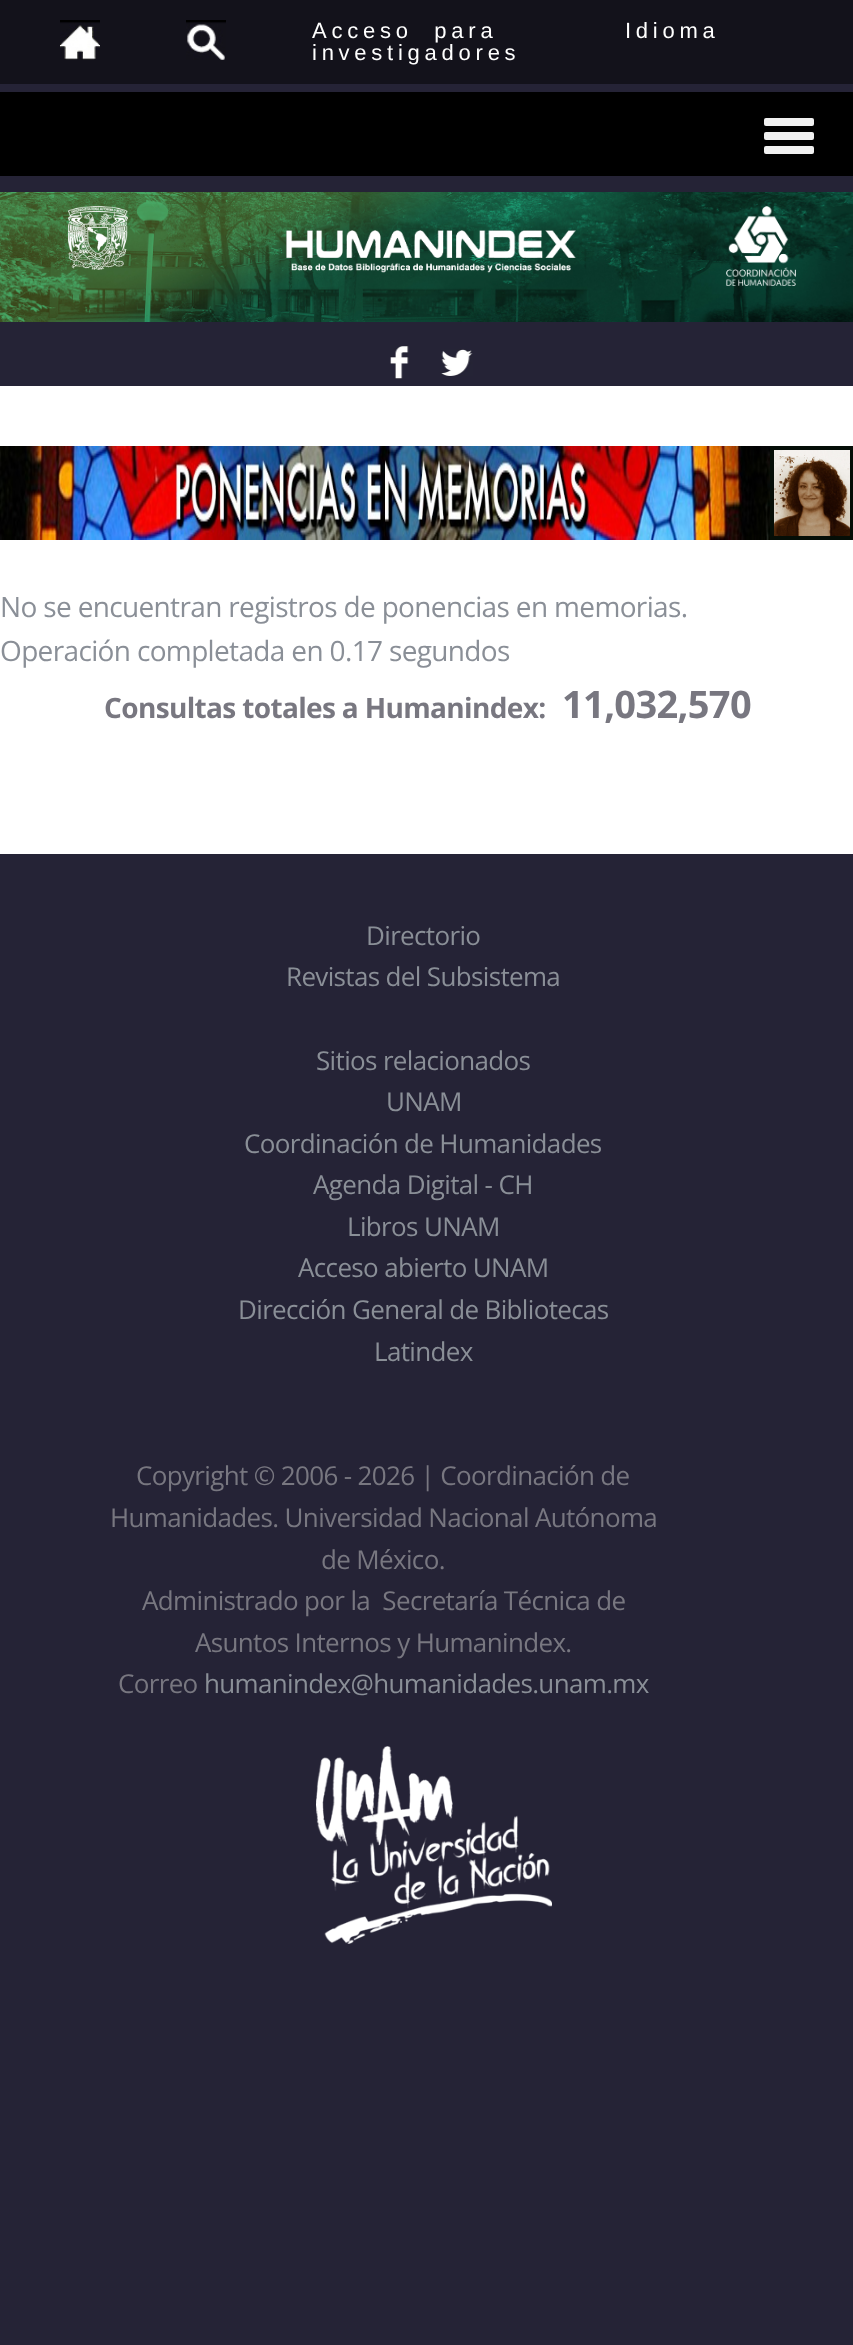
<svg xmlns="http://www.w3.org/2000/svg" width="853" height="2345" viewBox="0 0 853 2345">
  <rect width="100%" height="100%" fill="rgb(37,35,54)"/>
  <rect x="0" y="0" width="853" height="84" fill="rgb(19,18,27)"/>
  <image x="60" y="20" width="40" height="40" href="pic1.png"/>
  <image x="186" y="20" width="40" height="40" href="pic2.png"/>
  <g font-family="Liberation Sans" font-size="22" letter-spacing="4.75" fill="rgb(255,255,255)">
    <text xml:space="preserve"><tspan x="312" y="38">Acceso  para</tspan><tspan x="312" y="60">investigadores</tspan></text>
    <text x="625" y="38">Idioma</text>
  </g>
  <rect x="0" y="92" width="853" height="84" fill="rgb(0,0,0)"/>
  <rect x="764" y="118" width="50" height="8" rx="2" fill="rgb(241,241,241)"/>
  <rect x="764" y="132" width="50" height="8" rx="2" fill="rgb(241,241,241)"/>
  <rect x="764" y="146" width="50" height="8" rx="2" fill="rgb(241,241,241)"/>
  <image x="0" y="192" width="853" height="130" href="pic3.png"/>
  <image x="68" y="206" width="60" height="64" href="pic4.png"/>
  <image x="286" y="230" width="290" height="43" href="pic5.png"/>
  <image x="726" y="206" width="70" height="80" href="pic6.png"/>
  <image x="390" y="345" width="19" height="34" href="pic7.png"/>
  <image x="441" y="349" width="32" height="27" href="pic8.png"/>
  <rect x="0" y="386" width="853" height="468" fill="rgb(255,255,255)"/>
  <image x="0" y="446" width="770" height="94" href="pic9.png"/>
  <rect x="772" y="448" width="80" height="90" fill="none" stroke="rgb(5,14,7)" stroke-width="4"/>
  <image x="774" y="450" width="76" height="86" href="pic10.png"/>
  <g font-family="Open Sans" font-size="28" letter-spacing="-0.65" fill="rgb(138,143,151)">
    <text>
      <tspan x="0" y="617">No se encuentran registros de ponencias en memorias.</tspan>
      <tspan x="0" y="661">Operación completada en 0.17 segundos</tspan>
    </text>
  </g>
  <text x="104" y="718" font-family="Open Sans" font-size="28" font-weight="bold" letter-spacing="-0.65" fill="rgb(120,119,128)">Consultas totales a Humanindex:</text>
  <text x="562" y="718" font-family="Open Sans" font-size="38" font-weight="bold" letter-spacing="-0.65" fill="rgb(120,119,128)">11,032,570</text>
  <g font-family="Open Sans" font-size="26" letter-spacing="-0.65" fill="rgb(138,143,151)">
    <text x="366" y="945">Directorio</text>
    <text x="286" y="986">Revistas del Subsistema</text>
    <text x="316" y="1070">Sitios relacionados</text>
    <text x="386" y="1111">UNAM</text>
    <text x="244" y="1153">Coordinación de Humanidades</text>
    <text x="313" y="1194">Agenda Digital - CH</text>
    <text x="347" y="1236">Libros UNAM</text>
    <text x="298" y="1277">Acceso abierto UNAM</text>
    <text x="238" y="1319">Dirección General de Bibliotecas</text>
    <text x="374" y="1361">Latindex</text>
  </g>
  <g font-family="Open Sans" font-size="26" letter-spacing="-0.65" fill="rgb(120,119,128)">
    <text x="136" y="1485">Copyright © 2006 - 2026 | Coordinación de</text>
    <text x="110" y="1527">Humanidades. Universidad Nacional Autónoma</text>
    <text x="321" y="1569">de México.</text>
    <text x="142" y="1610" xml:space="preserve">Administrado por la  Secretaría Técnica de</text>
    <text x="195" y="1652">Asuntos Internos y Humanindex.</text>
    <text x="118" y="1693">Correo</text>
  </g>
  <text x="204" y="1693" font-family="Open Sans" font-size="26" letter-spacing="-0.65" fill="rgb(138,143,151)">humanindex@humanidades.unam.mx</text>
  <image x="316" y="1746" width="236" height="198" href="pic11.png"/>
</svg>
